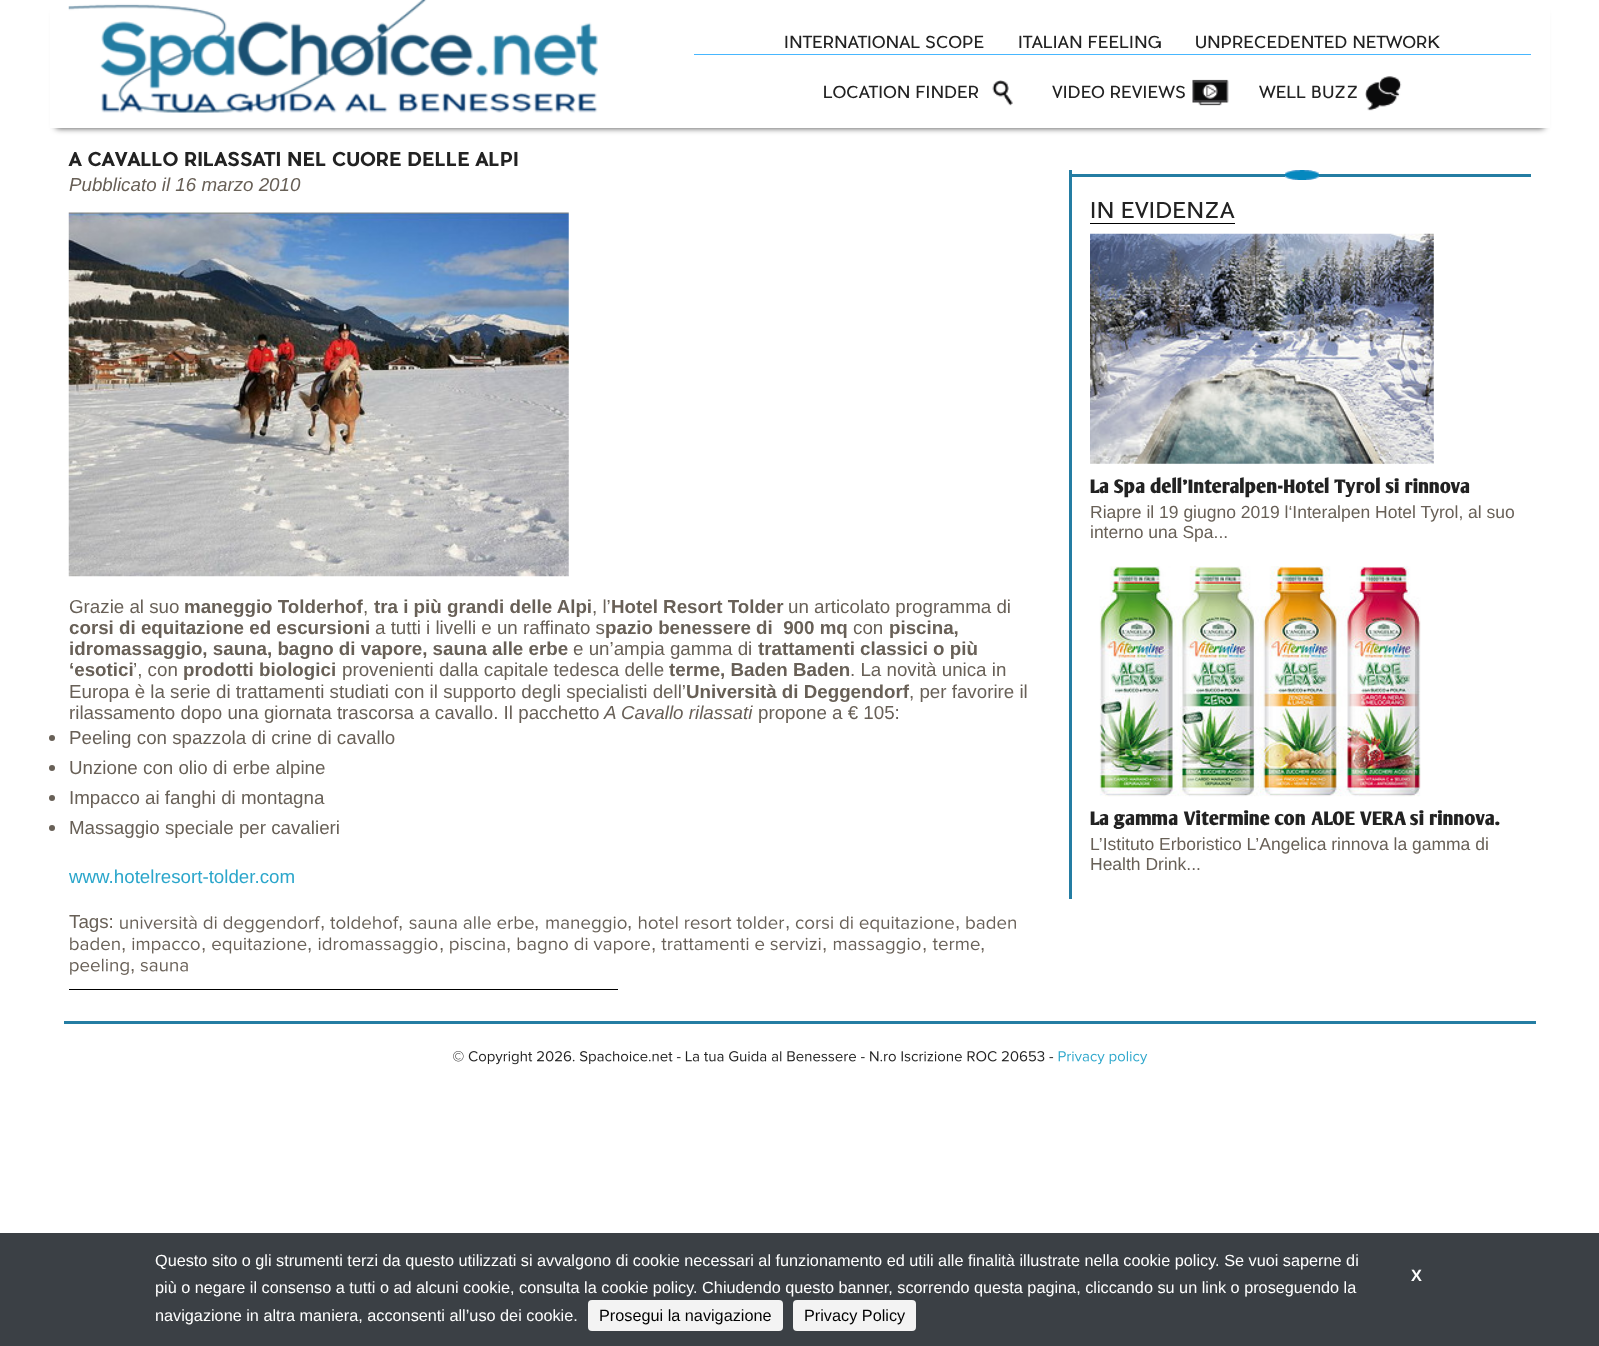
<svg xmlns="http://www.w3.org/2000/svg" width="1599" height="1346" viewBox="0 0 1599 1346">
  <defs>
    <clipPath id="clip1"><path d="M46 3H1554V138H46ZM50 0H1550V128H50Z" clip-rule="evenodd"/></clipPath>
  </defs>
  <rect width="100%" height="100%" fill="rgb(255,255,255)"/>
  <g clip-path="url(#clip1)">
    <rect x="56" y="13" width="1488" height="115" fill="rgba(0,0,0,0.75)" filter="blur(3px)"/>
  </g>
  <image x="68" y="0" width="530" height="113" href="pic1.png"/>
  <rect x="694" y="54" width="837" height="1" fill="rgb(71,183,255)"/>
  <g font-family="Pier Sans" font-size="16.25" fill="rgb(34,34,34)">
    <text x="784" y="48">INTERNATIONAL SCOPE</text>
    <text x="1018" y="48">ITALIAN FEELING</text>
    <text x="1195" y="48">UNPRECEDENTED NETWORK</text>
  </g>
  <image x="992" y="80" width="21" height="26" href="pic2.png"/>
  <text x="823" y="98" font-family="Pier Sans" font-size="16.25" fill="rgb(34,34,34)">LOCATION FINDER</text>
  <image x="1192" y="79" width="37" height="27" href="pic3.png"/>
  <text x="1052" y="98" font-family="Pier Sans" font-size="16.25" fill="rgb(34,34,34)">VIDEO REVIEWS</text>
  <image x="1365" y="76" width="37" height="35" href="pic4.png"/>
  <text x="1259" y="98" font-family="Pier Sans" font-size="16.25" fill="rgb(34,34,34)">WELL BUZZ</text>
  <text x="69" y="166" font-family="Pier Sans" font-size="18.75" font-weight="bold" fill="rgb(34,34,34)">A CAVALLO RILASSATI NEL CUORE DELLE ALPI</text>
  <text x="69" y="191" font-family="Liberation Sans" font-size="18.75" font-style="italic" fill="rgb(104,96,87)">Pubblicato il 16 marzo 2010</text>
  <image x="68" y="212" width="501" height="365" href="pic5.png"/>
  <text x="69" y="613" font-family="Liberation Sans" font-size="18.75" fill="rgb(104,96,87)">Grazie al suo</text>
  <text x="184" y="613" font-family="Liberation Sans" font-size="18.75" font-weight="bold" fill="rgb(104,96,87)">maneggio Tolderhof</text>
  <text x="363" y="613" font-family="Liberation Sans" font-size="18.75" fill="rgb(104,96,87)">,</text>
  <text x="374" y="613" font-family="Liberation Sans" font-size="18.75" font-weight="bold" fill="rgb(104,96,87)">tra i più grandi delle Alpi</text>
  <text x="592" y="613" font-family="Liberation Sans" font-size="18.75" fill="rgb(104,96,87)">, l’</text>
  <text x="611" y="613" font-family="Liberation Sans" font-size="18.75" font-weight="bold" fill="rgb(104,96,87)">Hotel Resort Tolder</text>
  <text x="788" y="613" font-family="Liberation Sans" font-size="18.75" fill="rgb(104,96,87)">un articolato programma di</text>
  <text x="69" y="634" font-family="Liberation Sans" font-size="18.75" font-weight="bold" fill="rgb(104,96,87)">corsi di equitazione ed escursioni</text>
  <text x="375" y="634" font-family="Liberation Sans" font-size="18.75" fill="rgb(104,96,87)">a tutti i livelli e un raffinato s</text>
  <text x="605" y="634" font-family="Liberation Sans" font-size="18.75" font-weight="bold" fill="rgb(104,96,87)" xml:space="preserve">pazio benessere di  900 mq</text>
  <text x="853" y="634" font-family="Liberation Sans" font-size="18.75" fill="rgb(104,96,87)">con</text>
  <g font-family="Liberation Sans" font-size="18.75" font-weight="bold" fill="rgb(104,96,87)">
    <text x="889" y="634">piscina,</text>
    <text x="69" y="655">idromassaggio, sauna, bagno di vapore, sauna alle erbe</text>
  </g>
  <text x="573" y="655" font-family="Liberation Sans" font-size="18.75" fill="rgb(104,96,87)">e un’ampia gamma di</text>
  <g font-family="Liberation Sans" font-size="18.75" font-weight="bold" fill="rgb(104,96,87)">
    <text x="758" y="655">trattamenti classici o più</text>
    <text x="69" y="676">‘esotici</text>
  </g>
  <text x="133" y="676" font-family="Liberation Sans" font-size="18.75" fill="rgb(104,96,87)">’, con</text>
  <text x="183" y="676" font-family="Liberation Sans" font-size="18.75" font-weight="bold" fill="rgb(104,96,87)">prodotti biologici</text>
  <text x="342" y="676" font-family="Liberation Sans" font-size="18.75" fill="rgb(104,96,87)">provenienti dalla capitale tedesca delle</text>
  <text x="669" y="676" font-family="Liberation Sans" font-size="18.75" font-weight="bold" fill="rgb(104,96,87)">terme, Baden Baden</text>
  <g font-family="Liberation Sans" font-size="18.75" fill="rgb(104,96,87)">
    <text x="850" y="676">. La novità unica in</text>
    <text x="69" y="698">Europa è la serie di trattamenti studiati con il supporto degli specialisti dell’</text>
  </g>
  <text x="686" y="698" font-family="Liberation Sans" font-size="18.75" font-weight="bold" fill="rgb(104,96,87)">Università di Deggendorf</text>
  <g font-family="Liberation Sans" font-size="18.75" fill="rgb(104,96,87)">
    <text x="909" y="698">, per favorire il</text>
    <text x="69" y="719">rilassamento dopo una giornata trascorsa a cavallo. Il pacchetto</text>
  </g>
  <text x="604" y="719" font-family="Liberation Sans" font-size="18.75" font-style="italic" fill="rgb(104,96,87)">A Cavallo rilassati</text>
  <text x="758" y="719" font-family="Liberation Sans" font-size="18.75" fill="rgb(104,96,87)">propone a € 105:</text>
  <circle cx="52" cy="738" r="3" fill="rgb(104,96,87)"/>
  <text x="69" y="744" font-family="Liberation Sans" font-size="18.75" fill="rgb(104,96,87)">Peeling con spazzola di crine di cavallo</text>
  <circle cx="52" cy="768" r="3" fill="rgb(104,96,87)"/>
  <text x="69" y="774" font-family="Liberation Sans" font-size="18.75" fill="rgb(104,96,87)">Unzione con olio di erbe alpine</text>
  <circle cx="52" cy="798" r="3" fill="rgb(104,96,87)"/>
  <text x="69" y="804" font-family="Liberation Sans" font-size="18.75" fill="rgb(104,96,87)">Impacco ai fanghi di montagna</text>
  <circle cx="52" cy="828" r="3" fill="rgb(104,96,87)"/>
  <text x="69" y="834" font-family="Liberation Sans" font-size="18.75" fill="rgb(104,96,87)">Massaggio speciale per cavalieri</text>
  <text x="69" y="883" font-family="Liberation Sans" font-size="18.75" fill="rgb(43,166,203)">www.hotelresort-tolder.com</text>
  <text x="69" y="928" font-family="Liberation Sans" font-size="18.75" fill="rgb(104,96,87)">Tags:</text>
  <image x="120" y="915" width="201" height="18" href="pic6.png"/>
  <text x="320" y="928" font-family="Liberation Sans" font-size="18.75" fill="rgb(104,96,87)">,</text>
  <image x="330" y="916" width="70" height="13" href="pic7.png"/>
  <text x="398" y="928" font-family="Liberation Sans" font-size="18.75" fill="rgb(104,96,87)">,</text>
  <image x="409" y="916" width="125" height="13" href="pic8.png"/>
  <text x="534" y="928" font-family="Liberation Sans" font-size="18.75" fill="rgb(104,96,87)">,</text>
  <image x="546" y="916" width="81" height="17" href="pic9.png"/>
  <text x="627" y="928" font-family="Liberation Sans" font-size="18.75" fill="rgb(104,96,87)">,</text>
  <image x="638" y="916" width="147" height="13" href="pic10.png"/>
  <text x="785" y="928" font-family="Liberation Sans" font-size="18.75" fill="rgb(104,96,87)">,</text>
  <image x="795" y="916" width="159" height="17" href="pic11.png"/>
  <text x="955" y="928" font-family="Liberation Sans" font-size="18.75" fill="rgb(104,96,87)">,</text>
  <image x="966" y="916" width="50" height="13" href="pic12.png"/>
  <image x="70" y="937" width="50" height="14" href="pic13.png"/>
  <text x="121" y="950" font-family="Liberation Sans" font-size="18.75" fill="rgb(104,96,87)">,</text>
  <image x="132" y="937" width="68" height="17" href="pic14.png"/>
  <text x="201" y="950" font-family="Liberation Sans" font-size="18.75" fill="rgb(104,96,87)">,</text>
  <image x="212" y="937" width="95" height="17" href="pic15.png"/>
  <text x="307" y="950" font-family="Liberation Sans" font-size="18.75" fill="rgb(104,96,87)">,</text>
  <image x="318" y="937" width="120" height="17" href="pic16.png"/>
  <text x="439" y="950" font-family="Liberation Sans" font-size="18.75" fill="rgb(104,96,87)">,</text>
  <image x="450" y="937" width="55" height="17" href="pic17.png"/>
  <text x="506" y="950" font-family="Liberation Sans" font-size="18.75" fill="rgb(104,96,87)">,</text>
  <image x="517" y="937" width="133" height="17" href="pic18.png"/>
  <text x="651" y="950" font-family="Liberation Sans" font-size="18.75" fill="rgb(104,96,87)">,</text>
  <image x="661" y="937" width="160" height="14" href="pic19.png"/>
  <text x="822" y="950" font-family="Liberation Sans" font-size="18.75" fill="rgb(104,96,87)">,</text>
  <image x="833" y="937" width="88" height="17" href="pic20.png"/>
  <text x="922" y="950" font-family="Liberation Sans" font-size="18.75" fill="rgb(104,96,87)">,</text>
  <image x="932" y="938" width="48" height="13" href="pic21.png"/>
  <text x="980" y="950" font-family="Liberation Sans" font-size="18.75" fill="rgb(104,96,87)">,</text>
  <image x="70" y="958" width="59" height="17" href="pic22.png"/>
  <text x="130" y="971" font-family="Liberation Sans" font-size="18.75" fill="rgb(104,96,87)">,</text>
  <image x="140" y="962" width="48" height="10" href="pic23.png"/>
  <rect x="69" y="989" width="549" height="1" fill="rgb(0,0,0)"/>
  <rect x="1069" y="170" width="3" height="729" fill="rgb(36,125,163)"/>
  <rect x="1071" y="174" width="460" height="3" fill="rgb(36,125,163)"/>
  <image x="1285" y="170" width="34" height="10" href="pic24.png"/>
  <rect x="1090" y="223" width="145" height="1" fill="rgb(0,0,0)"/>
  <text x="1090" y="218" font-family="Pier Sans" font-size="21.25" fill="rgb(34,34,34)">IN EVIDENZA</text>
  <image x="1090" y="233" width="344" height="231" href="pic25.png"/>
  <text x="1090" y="493" font-family="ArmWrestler" font-size="18.75" font-weight="bold" fill="rgb(34,34,34)">La Spa dell'Interalpen-Hotel Tyrol si rinnova</text>
  <g font-family="Liberation Sans" font-size="17.5" fill="rgb(104,96,87)">
    <text>
      <tspan x="1090" y="518">Riapre il 19 giugno 2019 l‘Interalpen Hotel Tyrol, al suo</tspan>
      <tspan x="1090" y="538">interno una Spa...</tspan>
    </text>
  </g>
  <image x="1099" y="566" width="322" height="231" href="pic26.png"/>
  <text x="1090" y="825" font-family="ArmWrestler" font-size="18.75" font-weight="bold" fill="rgb(34,34,34)">La gamma Vitermine con ALOE VERA si rinnova.</text>
  <g font-family="Liberation Sans" font-size="17.5" fill="rgb(104,96,87)">
    <text>
      <tspan x="1090" y="850">L’Istituto Erboristico L’Angelica rinnova la gamma di</tspan>
      <tspan x="1090" y="870">Health Drink...</tspan>
    </text>
  </g>
  <rect x="64" y="1021" width="1472" height="3" fill="rgb(36,125,163)"/>
  <image x="453" y="1051" width="601" height="14" href="pic27.png"/>
  <image x="1058" y="1051" width="90" height="14" href="pic28.png"/>
  <rect x="0" y="1233" width="1599" height="113" fill="rgb(59,64,69)"/>
  <text x="155" y="1266" font-family="Liberation Sans" font-size="16.25" fill="rgb(255,255,255)">Questo sito o gli strumenti terzi da questo utilizzati si avvalgono di cookie necessari al funzionamento ed utili alle finalità illustrate nella cookie policy. Se vuoi saperne di</text>
  <text x="1411" y="1281" font-family="Liberation Sans" font-size="16.25" font-weight="bold" fill="rgb(255,255,255)">X</text>
  <g font-family="Liberation Sans" font-size="16.25" fill="rgb(255,255,255)">
    <text>
      <tspan x="155" y="1293">più o negare il consenso a tutti o ad alcuni cookie, consulta la cookie policy. Chiudendo questo banner, scorrendo questa pagina, cliccando su un link o proseguendo la</tspan>
      <tspan x="155" y="1321">navigazione in altra maniera, acconsenti all’uso dei cookie.</tspan>
    </text>
  </g>
  <rect x="588" y="1300" width="195" height="31" rx="4" fill="rgb(243,243,243)"/>
  <text x="599" y="1321" font-family="Liberation Sans" font-size="16.25" fill="rgb(0,0,0)">Prosegui la navigazione</text>
  <rect x="793" y="1300" width="123" height="31" rx="4" fill="rgb(243,243,243)"/>
  <text x="804" y="1321" font-family="Liberation Sans" font-size="16.25" fill="rgb(0,0,0)">Privacy Policy</text>
</svg>
